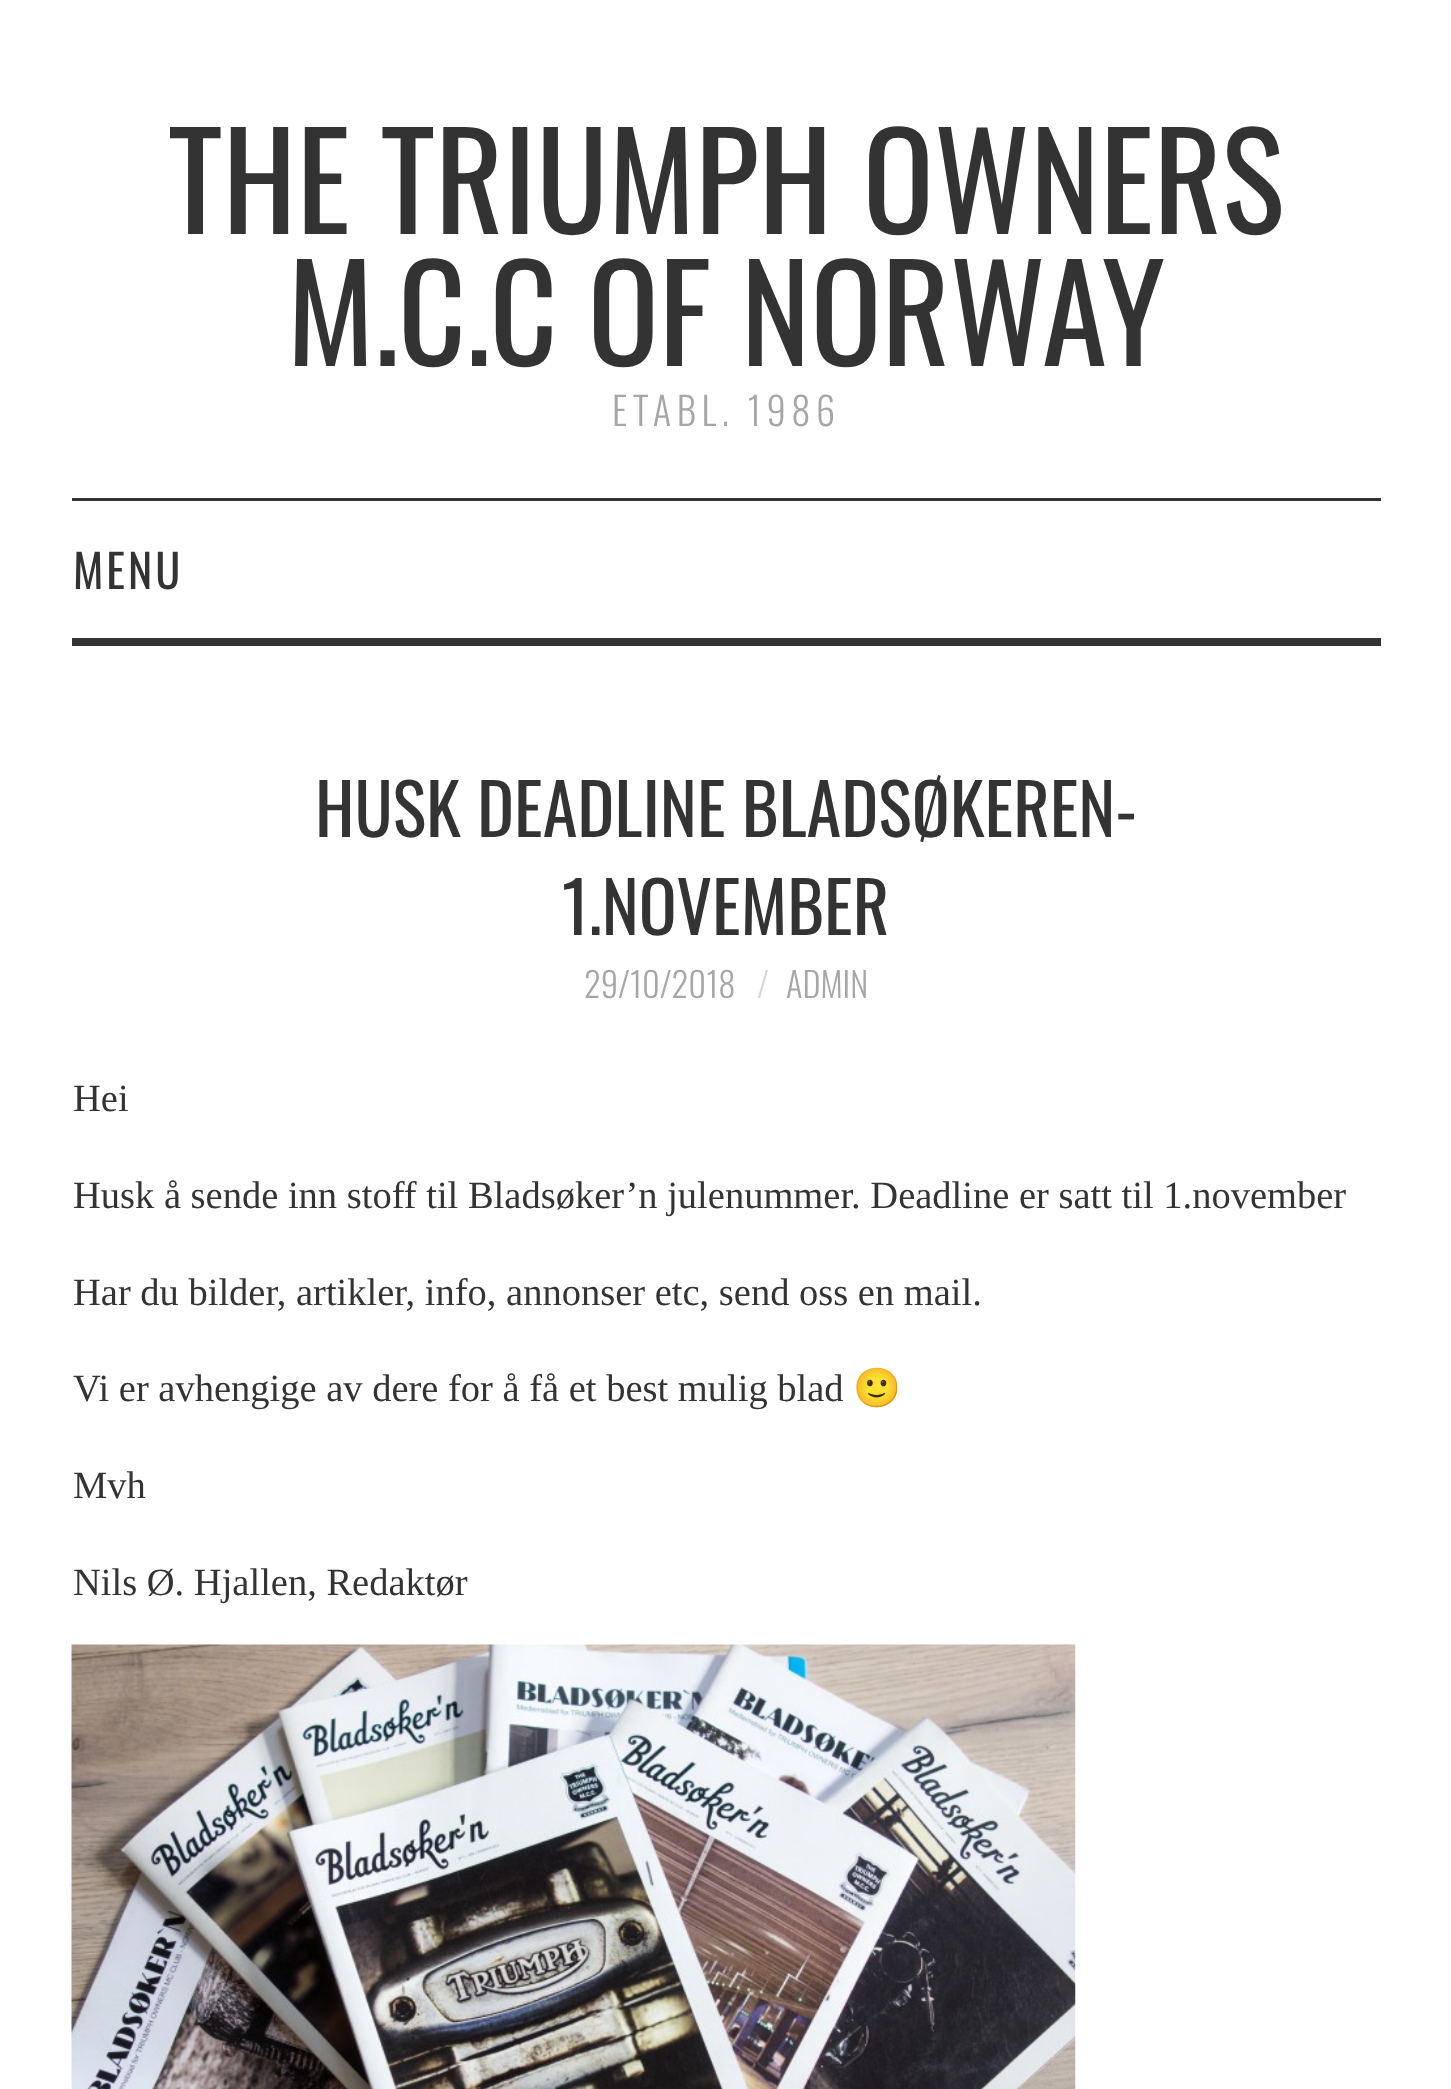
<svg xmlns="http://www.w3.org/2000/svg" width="1451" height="2089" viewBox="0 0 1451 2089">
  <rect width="100%" height="100%" fill="rgb(255,255,255)"/>
  <g font-family="Oswald" font-size="132" fill="rgb(51,51,51)">
    <text x="168" y="234">THE TRIUMPH OWNERS</text>
    <text x="287" y="366">M.C.C OF NORWAY</text>
  </g>
  <text x="612" y="426" font-family="Oswald" font-size="38.5" font-weight="300" letter-spacing="5.5" fill="rgb(166,166,166)">ETABL. 1986</text>
  <rect x="72" y="498" width="1309" height="3" fill="rgb(51,51,51)"/>
  <rect x="72" y="638" width="1309" height="8" fill="rgb(51,51,51)"/>
  <text x="73" y="589" font-family="Oswald" font-size="46" letter-spacing="3" fill="rgb(51,51,51)">MENU</text>
  <g font-family="Oswald" font-size="70.4" fill="rgb(51,51,51)">
    <text x="315" y="837">HUSK DEADLINE BLADSØKEREN-</text>
    <text x="562" y="935">1.NOVEMBER</text>
  </g>
  <text x="584" y="998" font-family="Oswald" font-size="34.5" font-weight="300" fill="rgb(166,166,166)">29/10/2018</text>
  <text x="757" y="998" font-family="Oswald" font-size="34.5" font-weight="300" fill="rgb(214,214,214)">/</text>
  <text x="786" y="998" font-family="Oswald" font-size="34.5" font-weight="300" fill="rgb(166,166,166)">ADMIN</text>
  <g font-family="Liberation Serif" font-size="38.5" fill="rgb(51,51,51)">
    <text x="73" y="1111">Hei</text>
    <text x="73" y="1208">Husk å sende inn stoff til Bladsøker’n julenummer. Deadline er satt til 1.november</text>
    <text x="73" y="1305">Har du bilder, artikler, info, annonser etc, send oss en mail.</text>
    <text x="73" y="1401">Vi er avhengige av dere for å få et best mulig blad</text>
  </g>
  <text x="853" y="1401" font-family="Noto Color Emoji" font-size="38.5" fill="rgb(51,51,51)">🙂</text>
  <g font-family="Liberation Serif" font-size="38.5" fill="rgb(51,51,51)">
    <text x="73" y="1498">Mvh</text>
    <text x="73" y="1595">Nils Ø. Hjallen, Redaktør</text>
  </g>
  <image x="71" y="1644" width="1005" height="445" href="pic1.png"/>
</svg>
